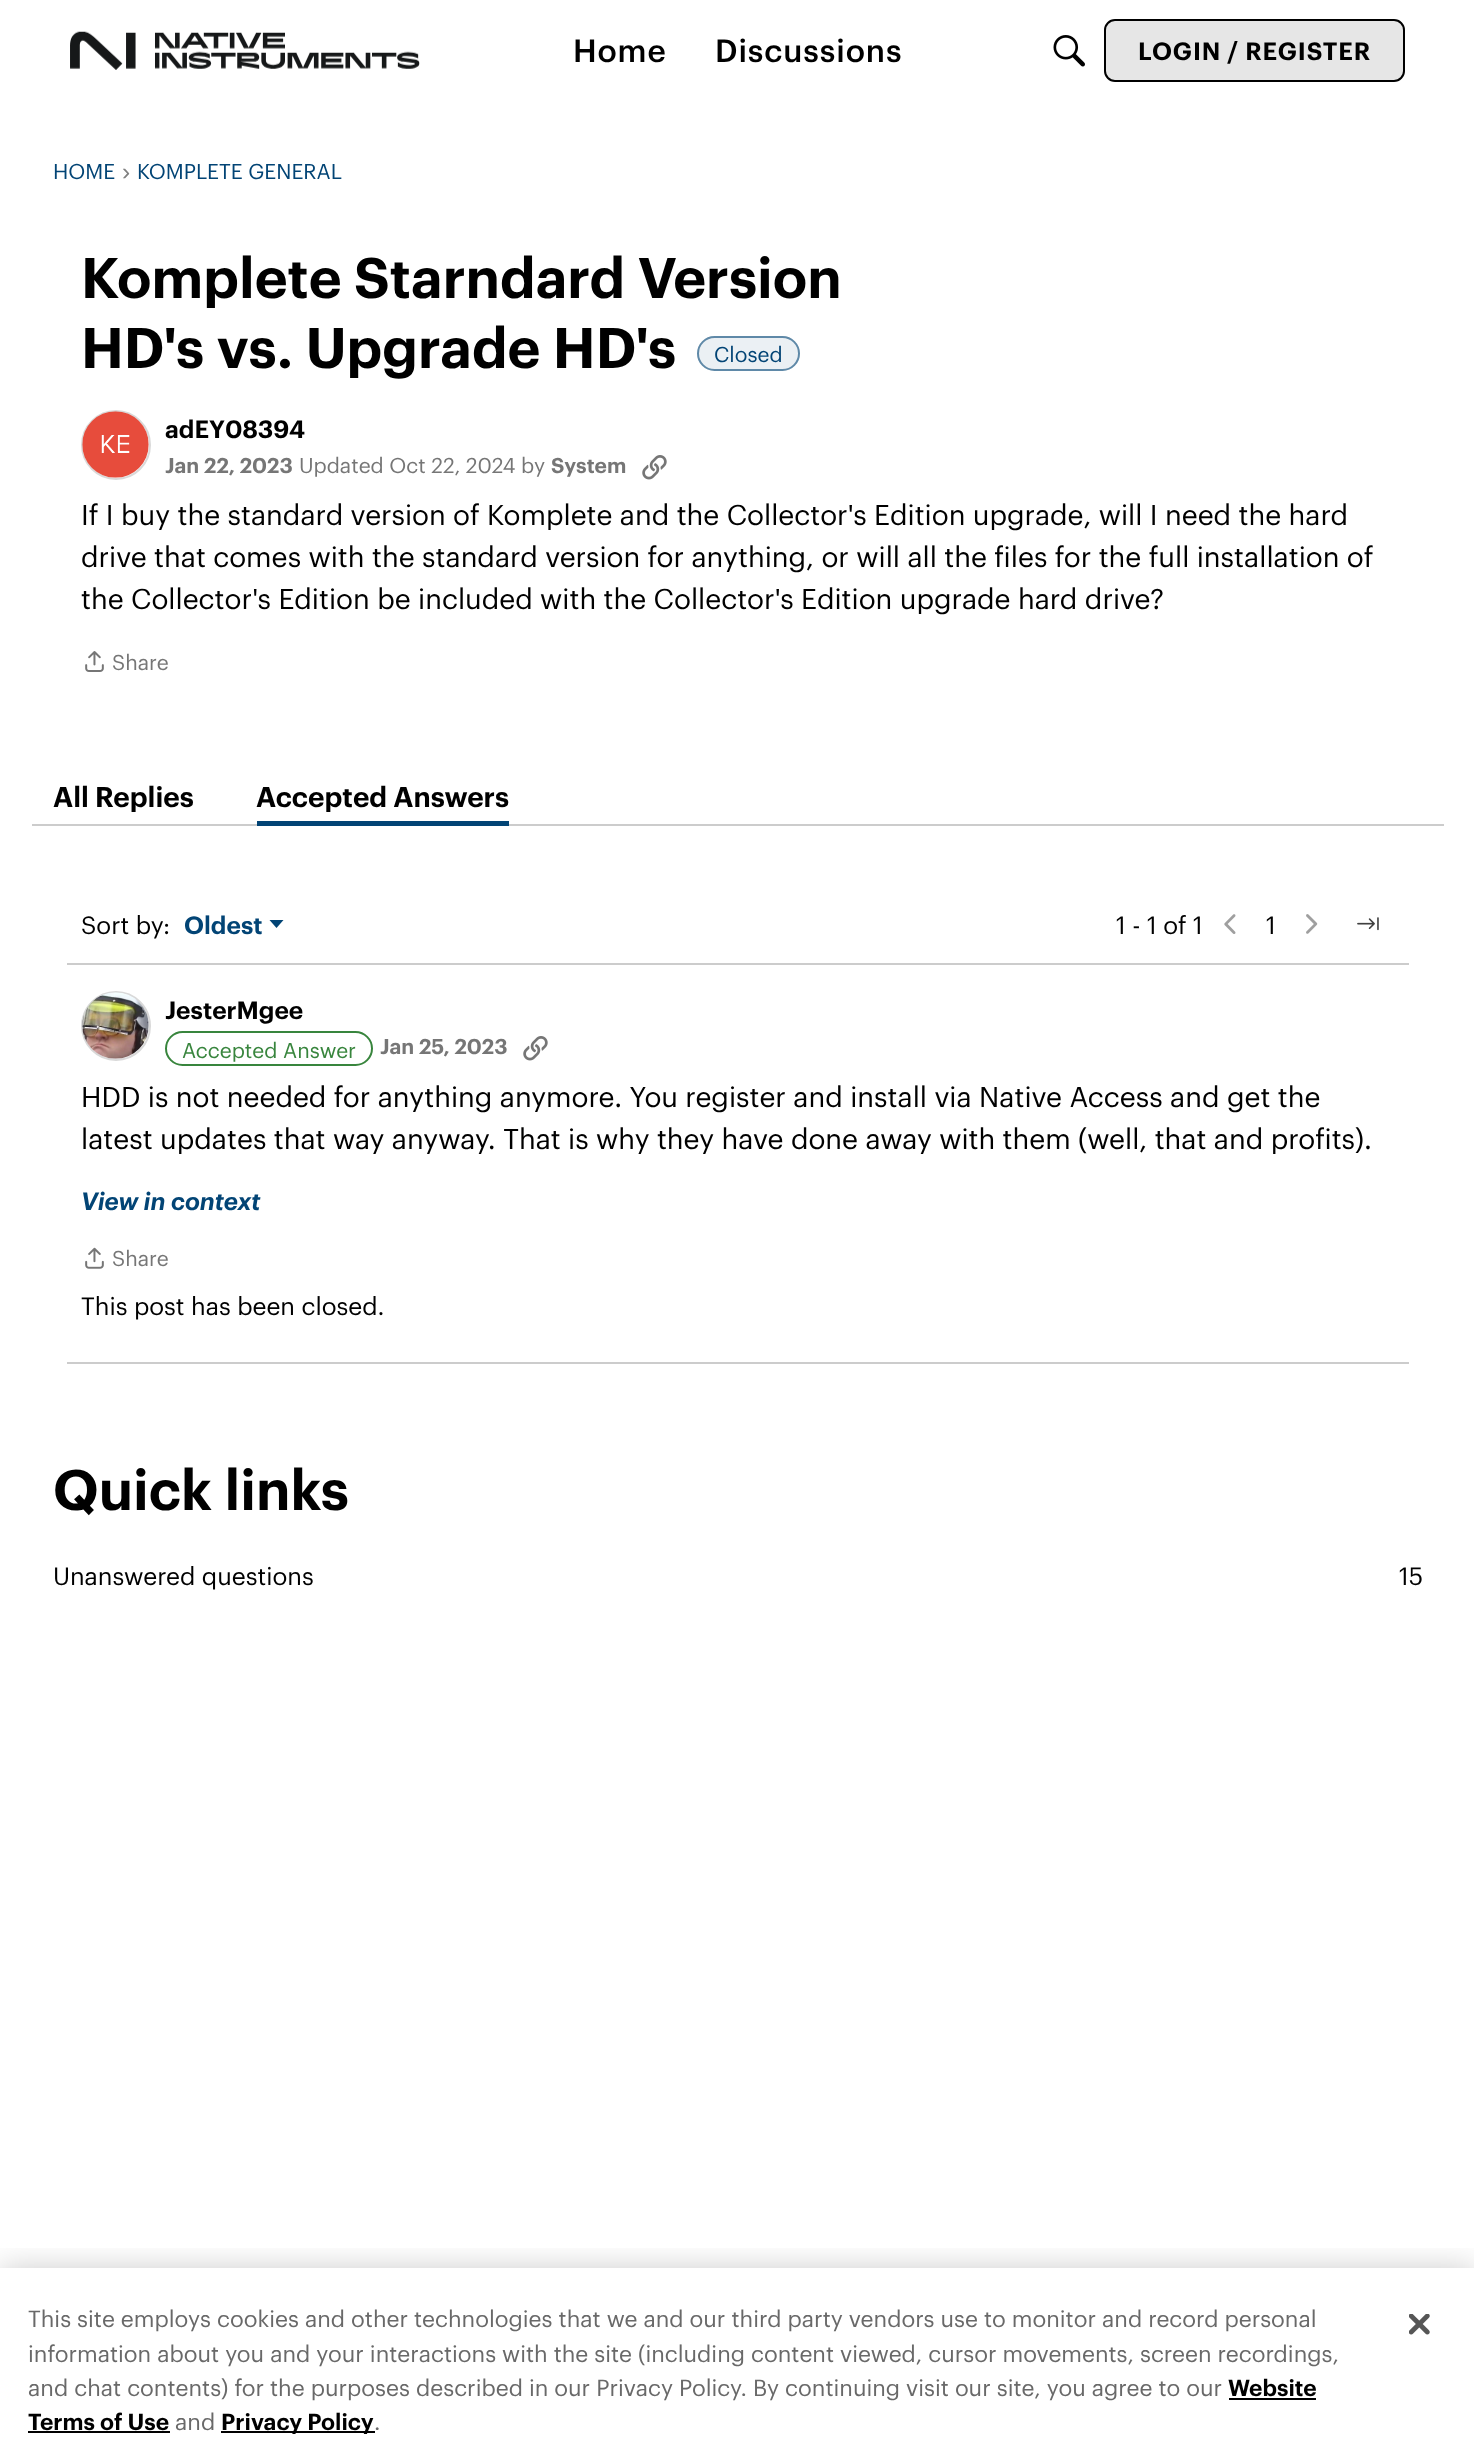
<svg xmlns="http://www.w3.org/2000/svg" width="1474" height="2457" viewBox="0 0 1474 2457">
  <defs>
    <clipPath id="clip1"><rect x="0" y="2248" width="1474" height="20"/></clipPath>
  </defs>
  <rect width="100%" height="100%" fill="rgb(255,255,255)"/>
  <image x="70" y="31" width="350" height="39" href="pic1.png"/>
  <g font-family="Graphik" font-size="31.5" font-weight="500" letter-spacing="0.9" fill="rgb(0,0,0)">
    <text x="573" y="62">Home</text>
    <text x="715" y="62">Discussions</text>
  </g>
  <image x="1053" y="35" width="32" height="32" href="pic2.png"/>
  <rect x="1105" y="20" width="299" height="61" rx="10" fill="rgb(230,230,230)" stroke="rgb(0,0,0)" stroke-width="2"/>
  <text x="1138" y="60" font-family="Graphik" font-size="24.5" font-weight="600" letter-spacing="0.9" fill="rgb(0,0,0)">LOGIN / REGISTER</text>
  <text x="53" y="179" font-family="Graphik" font-size="21" fill="rgb(2,68,117)">HOME</text>
  <text x="122" y="180" font-family="Liberation Sans" font-size="24.5" fill="rgb(128,128,128)">›</text>
  <text x="137" y="179" font-family="Graphik" font-size="21" fill="rgb(2,68,117)">KOMPLETE GENERAL</text>
  <g font-family="Graphik" font-size="56" font-weight="600" fill="rgb(0,0,0)">
    <text>
      <tspan x="81" y="298">Komplete Starndard Version</tspan>
      <tspan x="81" y="368">HD's vs. Upgrade HD's</tspan>
    </text>
  </g>
  <rect x="697" y="336" width="103" height="35" rx="17.5" fill="rgb(235,240,244)"/>
  <rect x="698" y="337" width="101" height="33" rx="16.5" fill="none" stroke="rgba(2,68,117,0.6)" stroke-width="2"/>
  <text x="714" y="362" font-family="Graphik" font-size="21" fill="rgb(2,68,117)">Closed</text>
  <circle cx="116" cy="445" r="34" fill="none" stroke="rgb(217,217,217)" stroke-width="2"/>
  <image x="82" y="411" width="67" height="67" href="pic3.png"/>
  <text x="165" y="438" font-family="Graphik" font-size="24.5" font-weight="600" fill="rgb(0,0,0)">adEY08394</text>
  <text x="165" y="473" font-family="Graphik" font-size="21" font-weight="600" fill="rgb(118,118,118)">Jan 22, 2023</text>
  <text x="299" y="473" font-family="Graphik" font-size="21" fill="rgb(118,118,118)">Updated Oct 22, 2024 by</text>
  <text x="551" y="473" font-family="Graphik" font-size="21" font-weight="600" fill="rgb(118,118,118)">System</text>
  <image x="642" y="455" width="25" height="25" href="pic4.png"/>
  <g font-family="Graphik" font-size="28" fill="rgb(0,0,0)">
    <text>
      <tspan x="81" y="525">If I buy the standard version of Komplete and the Collector's Edition upgrade, will I need the hard</tspan>
      <tspan x="81" y="567">drive that comes with the standard version for anything, or will all the files for the full installation of</tspan>
      <tspan x="81" y="609">the Collector's Edition be included with the Collector's Edition upgrade hard drive?</tspan>
    </text>
  </g>
  <image x="85" y="651" width="19" height="21" href="pic5.png"/>
  <text x="112" y="670" font-family="Graphik" font-size="21" fill="rgb(118,118,118)">Share</text>
  <rect x="32" y="824" width="1412" height="2" fill="rgb(204,204,204)"/>
  <g font-family="Graphik" font-size="28" font-weight="600" fill="rgb(0,0,0)">
    <text x="53" y="807">All Replies</text>
    <text x="256" y="807">Accepted Answers</text>
  </g>
  <rect x="257" y="821" width="252" height="5" fill="rgb(2,68,117)"/>
  <g font-family="Graphik" font-size="24.5" fill="rgb(0,0,0)">
    <text x="81" y="934">Sort by</text>
    <text x="163" y="934">:</text>
  </g>
  <text x="184" y="934" font-family="Graphik" font-size="24.5" font-weight="600" fill="rgb(2,68,117)">Oldest</text>
  <path d="M269.5 920H283.5L276.5 928Z" fill="rgb(2,68,117)"/>
  <text x="1116" y="934" font-family="Graphik" font-size="24.5" fill="rgb(0,0,0)">1 - 1 of 1</text>
  <image x="1224" y="914" width="12" height="20" href="pic6.png"/>
  <text x="1266" y="934" font-family="Graphik" font-size="24.5" fill="rgb(0,0,0)">1</text>
  <image x="1306" y="914" width="12" height="20" href="pic7.png"/>
  <image x="1357" y="917" width="22" height="14" href="pic8.png"/>
  <rect x="67" y="963" width="1342" height="2" fill="rgb(204,204,204)"/>
  <circle cx="116" cy="1026" r="34" fill="none" stroke="rgb(217,217,217)" stroke-width="2"/>
  <image x="82" y="992" width="67" height="67" href="pic9.png"/>
  <text x="165" y="1019" font-family="Graphik" font-size="24.5" font-weight="600" fill="rgb(0,0,0)">JesterMgee</text>
  <rect x="166" y="1032" width="206" height="33" rx="16.5" fill="none" stroke="rgb(56,133,61)" stroke-width="2"/>
  <text x="182" y="1058" font-family="Graphik" font-size="21" fill="rgb(56,133,61)">Accepted Answer</text>
  <text x="380" y="1054" font-family="Graphik" font-size="21" font-weight="600" fill="rgb(118,118,118)">Jan 25, 2023</text>
  <image x="523" y="1036" width="25" height="25" href="pic4.png"/>
  <g font-family="Graphik" font-size="28" fill="rgb(0,0,0)">
    <text>
      <tspan x="81" y="1107">HDD is not needed for anything anymore. You register and install via Native Access and get the</tspan>
      <tspan x="81" y="1149">latest updates that way anyway. That is why they have done away with them (well, that and profits).</tspan>
    </text>
  </g>
  <text x="81" y="1210" font-family="Graphik" font-size="24.5" font-weight="600" font-style="italic" fill="rgb(2,68,117)">View in context</text>
  <image x="85" y="1247" width="19" height="22" href="pic10.png"/>
  <text x="112" y="1266" font-family="Graphik" font-size="21" fill="rgb(118,118,118)">Share</text>
  <text x="81" y="1315" font-family="Graphik" font-size="24.5" fill="rgb(0,0,0)">This post has been closed.</text>
  <rect x="67" y="1362" width="1342" height="2" fill="rgb(204,204,204)"/>
  <text x="53" y="1510" font-family="Graphik" font-size="56" font-weight="600" fill="rgb(0,0,0)">Quick links</text>
  <g font-family="Graphik" font-size="24.5" fill="rgb(0,0,0)">
    <text x="53" y="1585">Unanswered questions</text>
    <text x="1399" y="1585">15</text>
  </g>
  <g clip-path="url(#clip1)">
    <rect x="0" y="2268" width="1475" height="189" fill="rgba(0,0,0,0.2)" filter="blur(16px)"/>
  </g>
  <g font-family="Graphik" font-size="22.75" fill="rgb(105,105,105)">
    <text>
      <tspan x="28" y="2327">This site employs cookies and other technologies that we and our third party vendors use to monitor and record personal</tspan>
      <tspan x="28" y="2362">information about you and your interactions with the site (including content viewed, cursor movements, screen recordings,</tspan>
      <tspan x="28" y="2396">and chat contents) for the purposes described in our Privacy Policy.</tspan>
    </text>
    <text x="753" y="2396">By continuing visit our site, you agree to our</text>
  </g>
  <text x="1228" y="2396" font-family="Graphik" font-size="22.75" font-weight="600" fill="rgb(0,0,0)">Website</text>
  <rect x="1229" y="2398" width="87" height="2" fill="rgb(0,0,0)"/>
  <text x="28" y="2430" font-family="Graphik" font-size="22.75" font-weight="600" fill="rgb(0,0,0)">Terms of Use</text>
  <rect x="28" y="2431" width="142" height="2" fill="rgb(0,0,0)"/>
  <text x="175" y="2430" font-family="Graphik" font-size="22.75" fill="rgb(105,105,105)">and</text>
  <rect x="221" y="2431" width="154" height="2" fill="rgb(0,0,0)"/>
  <text x="221" y="2430" font-family="Graphik" font-size="22.75" font-weight="600" fill="rgb(0,0,0)">Privacy Policy</text>
  <text x="374" y="2430" font-family="Graphik" font-size="22.75" fill="rgb(105,105,105)">.</text>
  <image x="1409" y="2314" width="21" height="21" href="pic11.png"/>
</svg>
